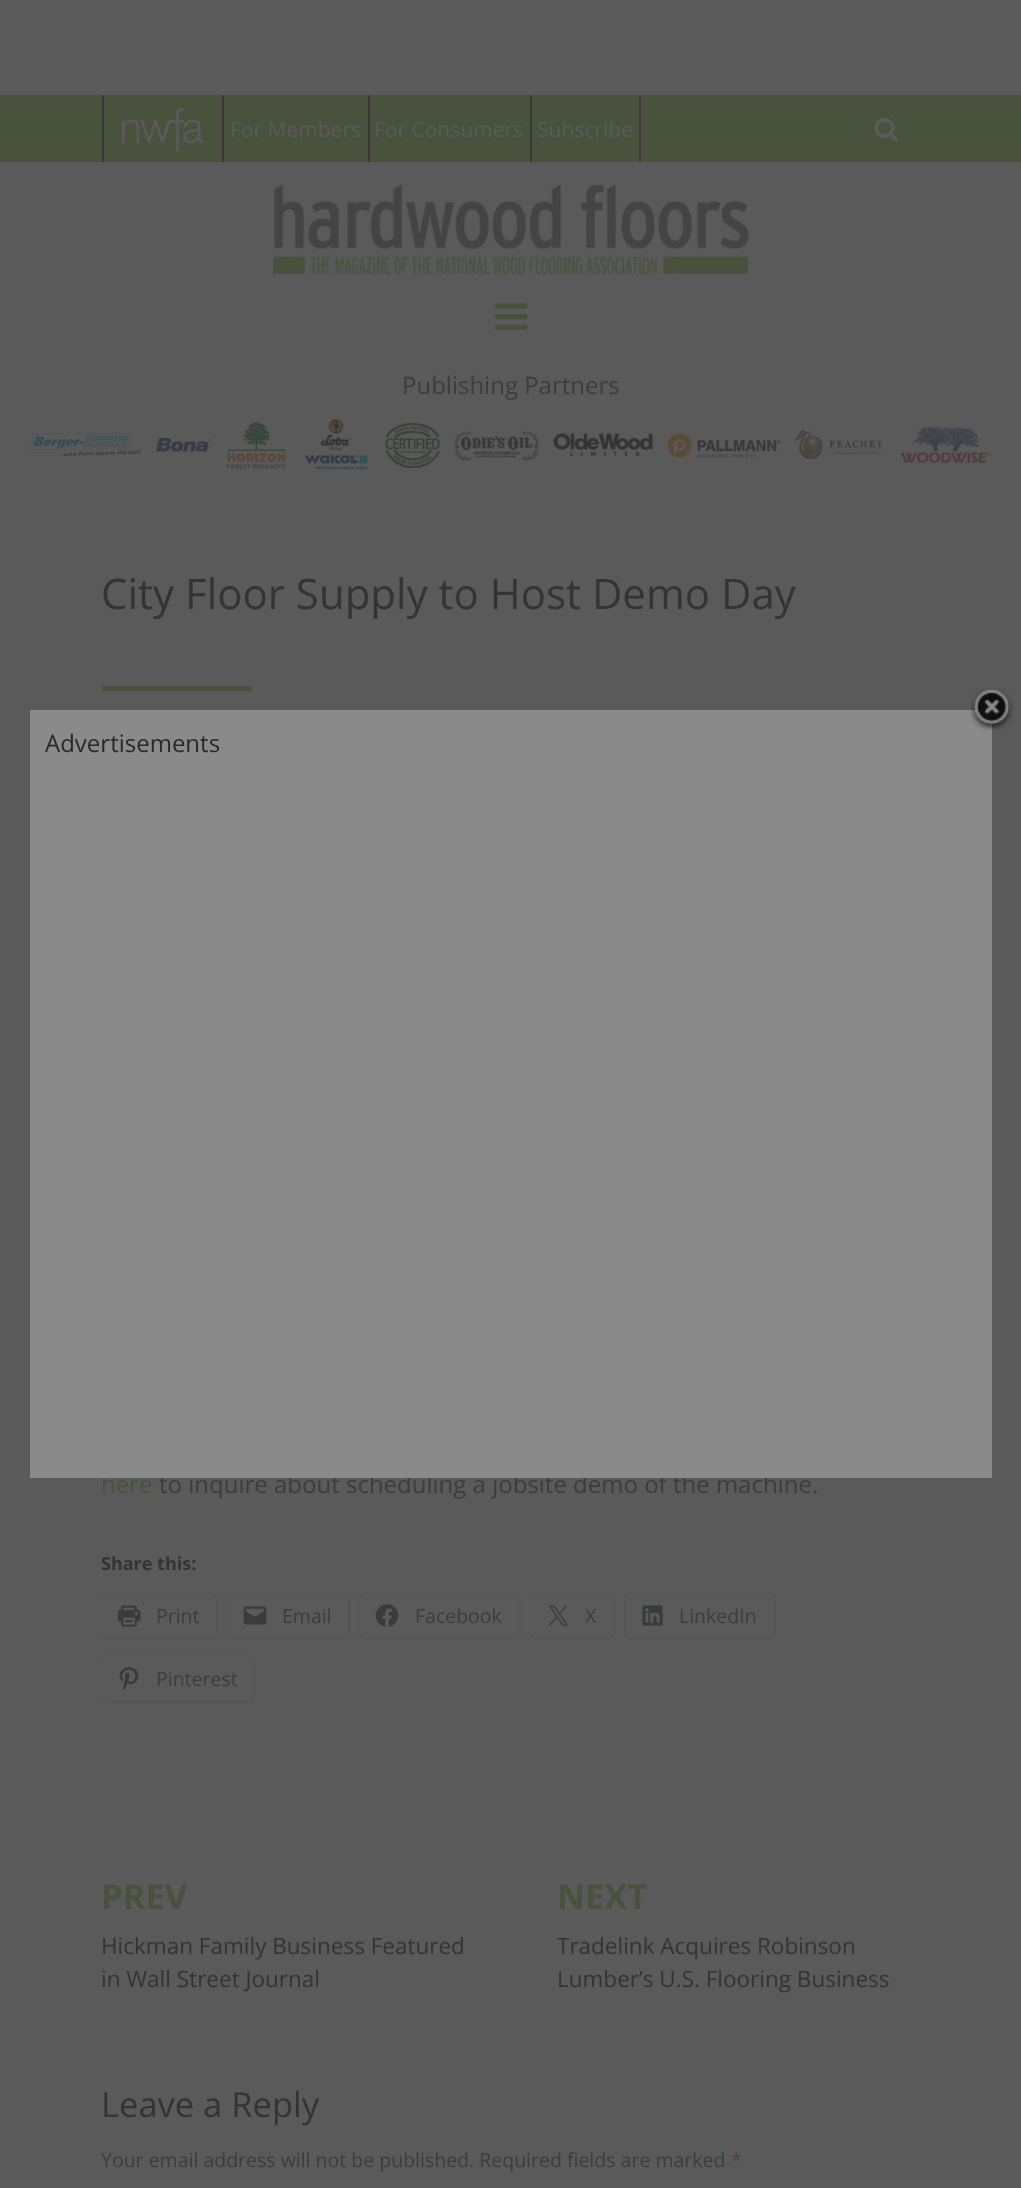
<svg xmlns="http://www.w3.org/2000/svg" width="1021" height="2188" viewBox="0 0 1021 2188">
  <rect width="100%" height="100%" fill="rgb(90,90,90)"/>
  <rect x="0" y="95" width="1021" height="67" fill="rgb(73,82,61)"/>
  <rect x="102" y="95" width="2" height="67" fill="rgb(58,58,58)"/>
  <image x="121" y="108" width="83" height="44" href="pic1.png"/>
  <rect x="222" y="95" width="2" height="67" fill="rgb(58,58,58)"/>
  <text x="230" y="137" font-family="Open Sans" font-size="21" fill="rgb(90,90,90)">For Members</text>
  <rect x="368" y="95" width="2" height="67" fill="rgb(58,58,58)"/>
  <text x="374" y="137" font-family="Open Sans" font-size="21" fill="rgb(90,90,90)">For Consumers</text>
  <rect x="639" y="95" width="2" height="67" fill="rgb(58,58,58)"/>
  <rect x="530" y="95" width="2" height="67" fill="rgb(58,58,58)"/>
  <text x="537" y="137" font-family="Open Sans" font-size="21" fill="rgb(90,90,90)">Subscribe</text>
  <image x="874" y="118" width="25" height="24" href="pic2.png"/>
  <image x="273" y="184" width="476" height="91" href="pic3.png"/>
  <image x="495" y="303" width="33" height="27" href="pic4.png"/>
  <text x="402" y="394" font-family="Open Sans" font-size="24" fill="rgb(61,61,61)">Publishing Partners</text>
  <image x="30" y="433" width="111" height="23" href="pic5.png"/>
  <image x="156" y="438" width="56" height="14" href="pic6.png"/>
  <image x="226" y="421" width="60" height="49" href="pic7.png"/>
  <image x="304" y="419" width="64" height="52" href="pic8.png"/>
  <image x="385" y="423" width="55" height="45" href="pic9.png"/>
  <image x="454" y="430" width="85" height="31" href="pic10.png"/>
  <image x="553" y="433" width="100" height="23" href="pic11.png"/>
  <image x="667" y="433" width="113" height="25" href="pic12.png"/>
  <image x="795" y="430" width="90" height="29" href="pic13.png"/>
  <image x="900" y="426" width="92" height="38" href="pic14.png"/>
  <text x="101" y="609" font-family="Open Sans" font-size="42" fill="rgb(52,52,52)">City Floor Supply to Host Demo Day</text>
  <rect x="102" y="686" width="150" height="5" fill="rgb(73,82,61)"/>
  <text x="101" y="1493" font-family="Open Sans" font-size="24" fill="rgb(73,82,61)">here</text>
  <text x="159" y="1493" font-family="Open Sans" font-size="24" fill="rgb(61,61,61)">to inquire about scheduling a jobsite demo of the machine.</text>
  <text x="101" y="1570" font-family="Open Sans" font-size="18" font-weight="bold" fill="rgb(52,52,52)">Share this:</text>
  <rect x="102" y="1593" width="115" height="46" rx="7" fill="none" stroke="rgb(86,86,86)" stroke-width="2"/>
  <rect x="102" y="1593" width="114" height="45" rx="6" fill="rgb(90,90,90)"/>
  <image x="117" y="1605" width="24" height="22" href="pic15.png"/>
  <text x="156" y="1623" font-family="Open Sans" font-size="19.5" fill="rgb(61,61,61)">Print</text>
  <rect x="228" y="1593" width="121" height="46" rx="7" fill="none" stroke="rgb(86,86,86)" stroke-width="2"/>
  <rect x="228" y="1593" width="120" height="45" rx="6" fill="rgb(90,90,90)"/>
  <image x="243" y="1606" width="24" height="19" href="pic16.png"/>
  <text x="282" y="1623" font-family="Open Sans" font-size="19.5" fill="rgb(61,61,61)">Email</text>
  <rect x="360" y="1593" width="160" height="46" rx="7" fill="none" stroke="rgb(86,86,86)" stroke-width="2"/>
  <rect x="360" y="1593" width="159" height="45" rx="6" fill="rgb(90,90,90)"/>
  <image x="375" y="1604" width="24" height="23" href="pic17.png"/>
  <text x="415" y="1623" font-family="Open Sans" font-size="19.5" fill="rgb(61,61,61)">Facebook</text>
  <rect x="531" y="1593" width="83" height="46" rx="7" fill="none" stroke="rgb(86,86,86)" stroke-width="2"/>
  <rect x="531" y="1593" width="83" height="45" rx="6" fill="rgb(90,90,90)"/>
  <image x="548" y="1605" width="21" height="21" href="pic18.png"/>
  <text x="585" y="1623" font-family="Open Sans" font-size="19.5" fill="rgb(61,61,61)">X</text>
  <rect x="625" y="1593" width="150" height="46" rx="7" fill="none" stroke="rgb(86,86,86)" stroke-width="2"/>
  <rect x="626" y="1593" width="148" height="45" rx="6" fill="rgb(90,90,90)"/>
  <image x="642" y="1605" width="21" height="21" href="pic19.png"/>
  <text x="679" y="1623" font-family="Open Sans" font-size="19.5" fill="rgb(61,61,61)">LinkedIn</text>
  <rect x="102" y="1656" width="152" height="46" rx="7" fill="none" stroke="rgb(86,86,86)" stroke-width="2"/>
  <rect x="102" y="1656" width="152" height="45" rx="6" fill="rgb(90,90,90)"/>
  <image x="119" y="1667" width="20" height="24" href="pic20.png"/>
  <text x="156" y="1686" font-family="Open Sans" font-size="19.5" fill="rgb(61,61,61)">Pinterest</text>
  <text x="101" y="1909" font-family="Open Sans" font-size="34.5" font-weight="bold" fill="rgb(73,82,61)">PREV</text>
  <g font-family="Open Sans" font-size="22.5" fill="rgb(52,52,52)">
    <text>
      <tspan x="101" y="1954">Hickman Family Business Featured</tspan>
      <tspan x="101" y="1987">in Wall Street Journal</tspan>
    </text>
  </g>
  <text x="557" y="1909" font-family="Open Sans" font-size="34.5" font-weight="bold" fill="rgb(73,82,61)">NEXT</text>
  <g font-family="Open Sans" font-size="22.5" fill="rgb(52,52,52)">
    <text>
      <tspan x="557" y="1954">Tradelink Acquires Robinson</tspan>
      <tspan x="557" y="1987">Lumber’s U.S. Flooring Business</tspan>
    </text>
  </g>
  <text x="101" y="2117" font-family="Open Sans" font-size="34.5" fill="rgb(52,52,52)">Leave a Reply</text>
  <text x="101" y="2167" font-family="Open Sans" font-size="19.5" fill="rgb(61,61,61)">Your email address will not be published. Required fields are marked</text>
  <text x="731" y="2167" font-family="Open Sans" font-size="19.5" fill="rgb(81,60,58)">*</text>
  <rect x="30" y="710" width="962" height="768" fill="rgb(138,138,138)"/>
  <image x="970" y="688" width="44" height="43" href="pic21.png"/>
  <text x="45" y="752" font-family="Open Sans" font-size="24" fill="rgb(41,41,41)">Advertisements</text>
</svg>
